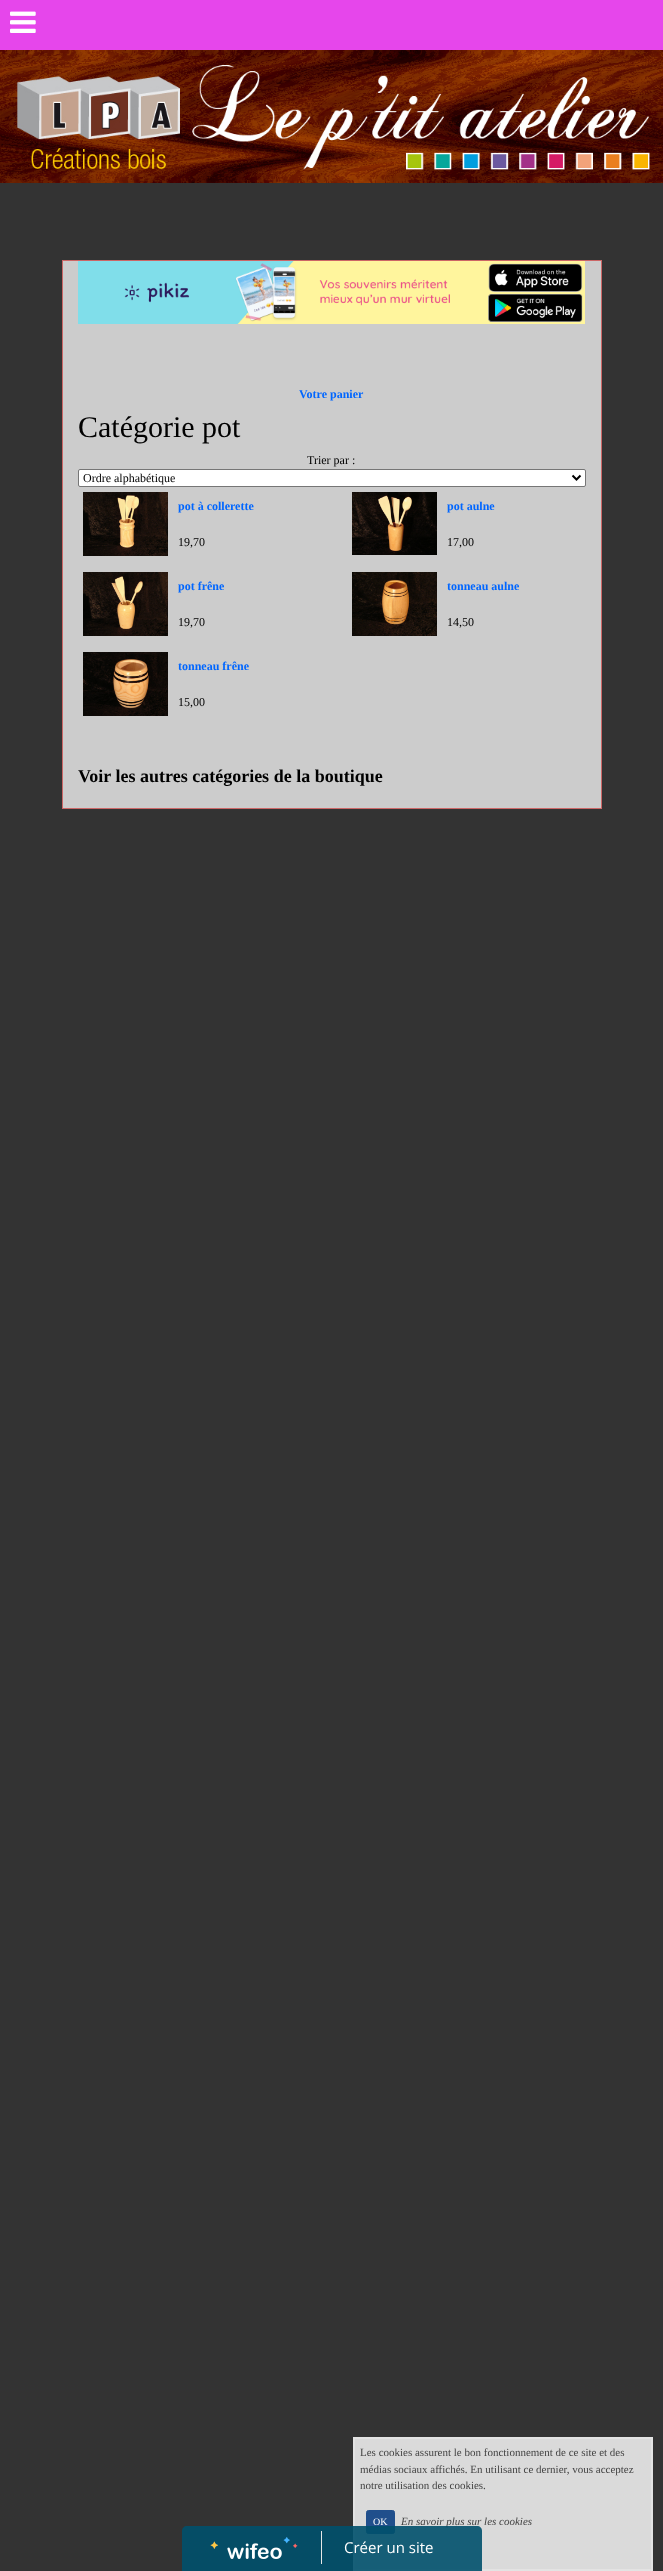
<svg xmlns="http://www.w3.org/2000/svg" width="663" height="2571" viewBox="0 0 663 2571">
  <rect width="100%" height="100%" fill="rgb(51,51,51)"/>
  <image x="0" y="50" width="663" height="133" href="pic1.png"/>
  <rect x="62.5" y="260.5" width="539" height="548" fill="rgb(204,204,204)" stroke="rgb(204,102,102)"/>
  <rect x="0" y="0" width="663" height="50" fill="rgb(230,70,235)"/>
  <image x="10" y="11" width="26" height="22" href="pic2.png"/>
  <image x="78" y="261" width="507" height="63" href="pic3.png"/>
  <text x="299" y="398" font-family="Liberation Serif" font-size="12" font-weight="bold" fill="rgb(0,102,255)">Votre panier</text>
  <text x="78" y="437" font-family="Liberation Serif" font-size="30" fill="rgb(0,0,0)">Catégorie pot</text>
  <text x="307" y="464" font-family="Liberation Serif" font-size="12" fill="rgb(0,0,0)">Trier par :</text>
  <rect x="78.5" y="469.5" width="507" height="17" rx="1.5" fill="rgb(255,255,255)" stroke="rgb(118,118,118)"/>
  <path d="M572.5 475.5L576.5 479.5L580.5 475.5" fill="none" stroke="rgb(0,0,0)" stroke-width="2"/>
  <text x="83" y="482" font-family="Liberation Serif" font-size="12" fill="rgb(0,0,0)">Ordre alphabétique</text>
  <image x="83" y="492" width="85" height="64" href="pic4.png"/>
  <text x="178" y="510" font-family="Liberation Serif" font-size="12" font-weight="bold" fill="rgb(0,102,255)">pot à collerette</text>
  <text x="178" y="546" font-family="Liberation Serif" font-size="12" fill="rgb(0,0,0)">19,70</text>
  <image x="352" y="492" width="85" height="63" href="pic5.png"/>
  <text x="447" y="510" font-family="Liberation Serif" font-size="12" font-weight="bold" fill="rgb(0,102,255)">pot aulne</text>
  <text x="447" y="546" font-family="Liberation Serif" font-size="12" fill="rgb(0,0,0)">17,00</text>
  <image x="83" y="572" width="85" height="64" href="pic6.png"/>
  <text x="178" y="590" font-family="Liberation Serif" font-size="12" font-weight="bold" fill="rgb(0,102,255)">pot frêne</text>
  <text x="178" y="626" font-family="Liberation Serif" font-size="12" fill="rgb(0,0,0)">19,70</text>
  <image x="352" y="572" width="85" height="64" href="pic7.png"/>
  <text x="447" y="590" font-family="Liberation Serif" font-size="12" font-weight="bold" fill="rgb(0,102,255)">tonneau aulne</text>
  <text x="447" y="626" font-family="Liberation Serif" font-size="12" fill="rgb(0,0,0)">14,50</text>
  <image x="83" y="652" width="85" height="64" href="pic8.png"/>
  <text x="178" y="670" font-family="Liberation Serif" font-size="12" font-weight="bold" fill="rgb(0,102,255)">tonneau frêne</text>
  <text x="178" y="706" font-family="Liberation Serif" font-size="12" fill="rgb(0,0,0)">15,00</text>
  <text x="78" y="782" font-family="Liberation Serif" font-size="18" font-weight="bold" fill="rgb(0,0,0)">Voir les autres catégories de la boutique</text>
  <rect x="354" y="2438" width="298" height="132" fill="rgb(218,218,218)" stroke="rgb(227,227,227)" stroke-width="2"/>
  <g font-family="Liberation Serif" font-size="11" fill="rgb(68,68,68)">
    <text>
      <tspan x="360" y="2456">Les cookies assurent le bon fonctionnement de ce site et des</tspan>
      <tspan x="360" y="2473">médias sociaux affichés. En utilisant ce dernier, vous acceptez</tspan>
      <tspan x="360" y="2489">notre utilisation des cookies.</tspan>
    </text>
  </g>
  <rect x="366.5" y="2510.5" width="28" height="23" rx="2" fill="rgb(32,79,140)" stroke="rgb(32,79,140)"/>
  <text x="373" y="2525" font-family="Liberation Serif" font-size="10" fill="rgb(255,255,255)">OK</text>
  <text x="401" y="2525" font-family="Liberation Serif" font-size="11" font-style="italic" fill="rgb(68,68,68)">En savoir plus sur les cookies</text>
  <path d="M187 2526H477C480 2526 482 2528 482 2531V2571H182V2531C182 2528 184 2526 187 2526Z" fill="rgba(0,80,107,0.9)"/>
  <rect x="321" y="2531" width="1" height="33" fill="rgb(231,231,231)"/>
  <image x="210" y="2537" width="88" height="22" href="pic9.png"/>
  <text x="344" y="2553" font-family="Open Sans" font-size="15" fill="rgb(255,255,255)">Créer un site</text>
</svg>
